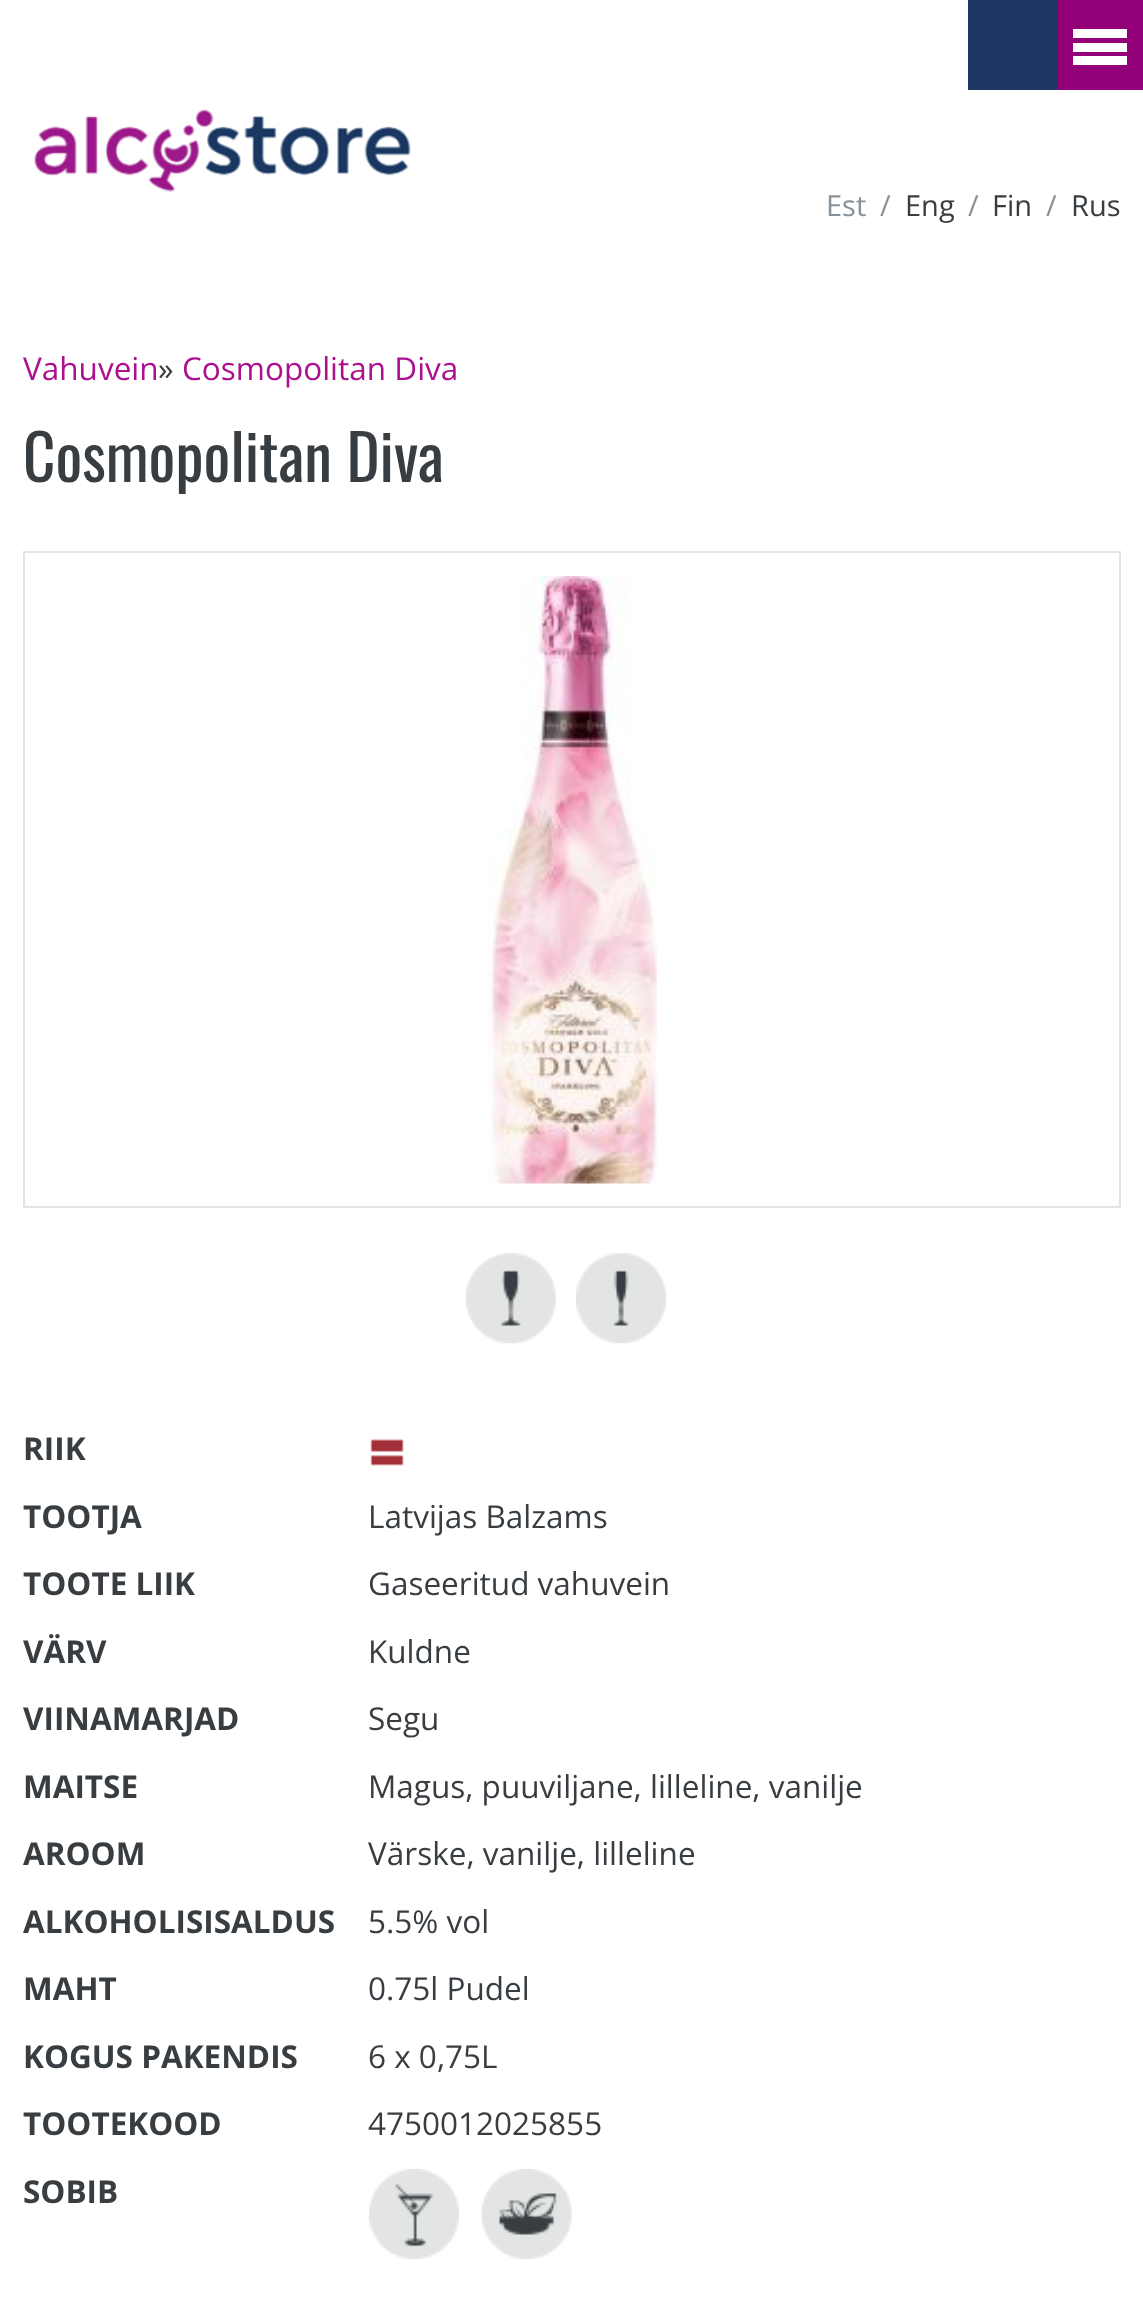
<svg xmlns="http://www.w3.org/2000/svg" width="1143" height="2305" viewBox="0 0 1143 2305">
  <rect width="100%" height="100%" fill="rgb(255,255,255)"/>
  <rect x="968" y="0" width="90" height="90" fill="rgb(30,55,98)"/>
  <rect x="1058" y="0" width="85" height="90" fill="rgb(146,1,120)"/>
  <rect x="1073" y="29" width="54" height="9" fill="rgb(255,255,255)"/>
  <rect x="1073" y="43" width="54" height="9" fill="rgb(255,255,255)"/>
  <rect x="1073" y="56" width="54" height="9" fill="rgb(255,255,255)"/>
  <image x="33" y="109" width="378" height="84" href="pic1.png"/>
  <g font-family="Open Sans" font-size="29" fill="rgb(135,145,154)">
    <text x="826" y="216">Est</text>
    <text x="880" y="216">/</text>
  </g>
  <text x="905" y="216" font-family="Open Sans" font-size="29" fill="rgb(56,61,65)">Eng</text>
  <text x="968" y="216" font-family="Open Sans" font-size="29" fill="rgb(135,145,154)">/</text>
  <text x="992" y="216" font-family="Open Sans" font-size="29" fill="rgb(56,61,65)">Fin</text>
  <text x="1046" y="216" font-family="Open Sans" font-size="29" fill="rgb(135,145,154)">/</text>
  <text x="1071" y="216" font-family="Open Sans" font-size="29" fill="rgb(56,61,65)">Rus</text>
  <text x="23" y="380" font-family="Open Sans" font-size="31.5" fill="rgb(172,16,142)">Vahuvein</text>
  <text x="158" y="380" font-family="Open Sans" font-size="31.5" fill="rgb(56,61,65)">»</text>
  <text x="182" y="380" font-family="Open Sans" font-size="31.5" fill="rgb(172,16,142)">Cosmopolitan Diva</text>
  <text x="23" y="482" font-family="Oswald" font-size="63" fill="rgb(56,61,65)">Cosmopolitan Diva</text>
  <rect x="24" y="552" width="1096" height="655" fill="none" stroke="rgb(227,228,228)" stroke-width="2"/>
  <image x="488" y="576" width="169" height="608" href="pic2.png"/>
  <image x="465" y="1253" width="91" height="91" href="pic3.png"/>
  <image x="576" y="1253" width="90" height="91" href="pic4.png"/>
  <text x="23" y="1460" font-family="Open Sans" font-size="31.5" font-weight="bold" fill="rgb(56,61,65)">RIIK</text>
  <image x="370" y="1439" width="34" height="27" href="pic5.png"/>
  <text x="23" y="1528" font-family="Open Sans" font-size="31.5" font-weight="bold" fill="rgb(56,61,65)">TOOTJA</text>
  <text x="368" y="1528" font-family="Open Sans" font-size="31.5" fill="rgb(56,61,65)">Latvijas Balzams</text>
  <text x="23" y="1595" font-family="Open Sans" font-size="31.5" font-weight="bold" fill="rgb(56,61,65)">TOOTE LIIK</text>
  <text x="368" y="1595" font-family="Open Sans" font-size="31.5" fill="rgb(56,61,65)">Gaseeritud vahuvein</text>
  <text x="23" y="1663" font-family="Open Sans" font-size="31.5" font-weight="bold" fill="rgb(56,61,65)">VÄRV</text>
  <text x="368" y="1663" font-family="Open Sans" font-size="31.5" fill="rgb(56,61,65)">Kuldne</text>
  <text x="23" y="1730" font-family="Open Sans" font-size="31.5" font-weight="bold" fill="rgb(56,61,65)">VIINAMARJAD</text>
  <text x="368" y="1730" font-family="Open Sans" font-size="31.5" fill="rgb(56,61,65)">Segu</text>
  <text x="23" y="1798" font-family="Open Sans" font-size="31.5" font-weight="bold" fill="rgb(56,61,65)">MAITSE</text>
  <text x="368" y="1798" font-family="Open Sans" font-size="31.5" fill="rgb(56,61,65)">Magus, puuviljane, lilleline, vanilje</text>
  <text x="23" y="1865" font-family="Open Sans" font-size="31.5" font-weight="bold" fill="rgb(56,61,65)">AROOM</text>
  <text x="368" y="1865" font-family="Open Sans" font-size="31.5" fill="rgb(56,61,65)">Värske, vanilje, lilleline</text>
  <text x="23" y="1933" font-family="Open Sans" font-size="31.5" font-weight="bold" fill="rgb(56,61,65)">ALKOHOLISISALDUS</text>
  <text x="368" y="1933" font-family="Open Sans" font-size="31.5" fill="rgb(56,61,65)">5.5% vol</text>
  <text x="23" y="2000" font-family="Open Sans" font-size="31.5" font-weight="bold" fill="rgb(56,61,65)">MAHT</text>
  <text x="368" y="2000" font-family="Open Sans" font-size="31.5" fill="rgb(56,61,65)">0.75l Pudel</text>
  <text x="23" y="2068" font-family="Open Sans" font-size="31.5" font-weight="bold" fill="rgb(56,61,65)">KOGUS PAKENDIS</text>
  <text x="368" y="2068" font-family="Open Sans" font-size="31.5" fill="rgb(56,61,65)">6 x 0,75L</text>
  <text x="23" y="2135" font-family="Open Sans" font-size="31.5" font-weight="bold" fill="rgb(56,61,65)">TOOTEKOOD</text>
  <text x="368" y="2135" font-family="Open Sans" font-size="31.5" fill="rgb(56,61,65)">4750012025855</text>
  <text x="23" y="2203" font-family="Open Sans" font-size="31.5" font-weight="bold" fill="rgb(56,61,65)">SOBIB</text>
  <image x="369" y="2169" width="90" height="90" href="pic6.png"/>
  <image x="481" y="2169" width="91" height="90" href="pic7.png"/>
</svg>
